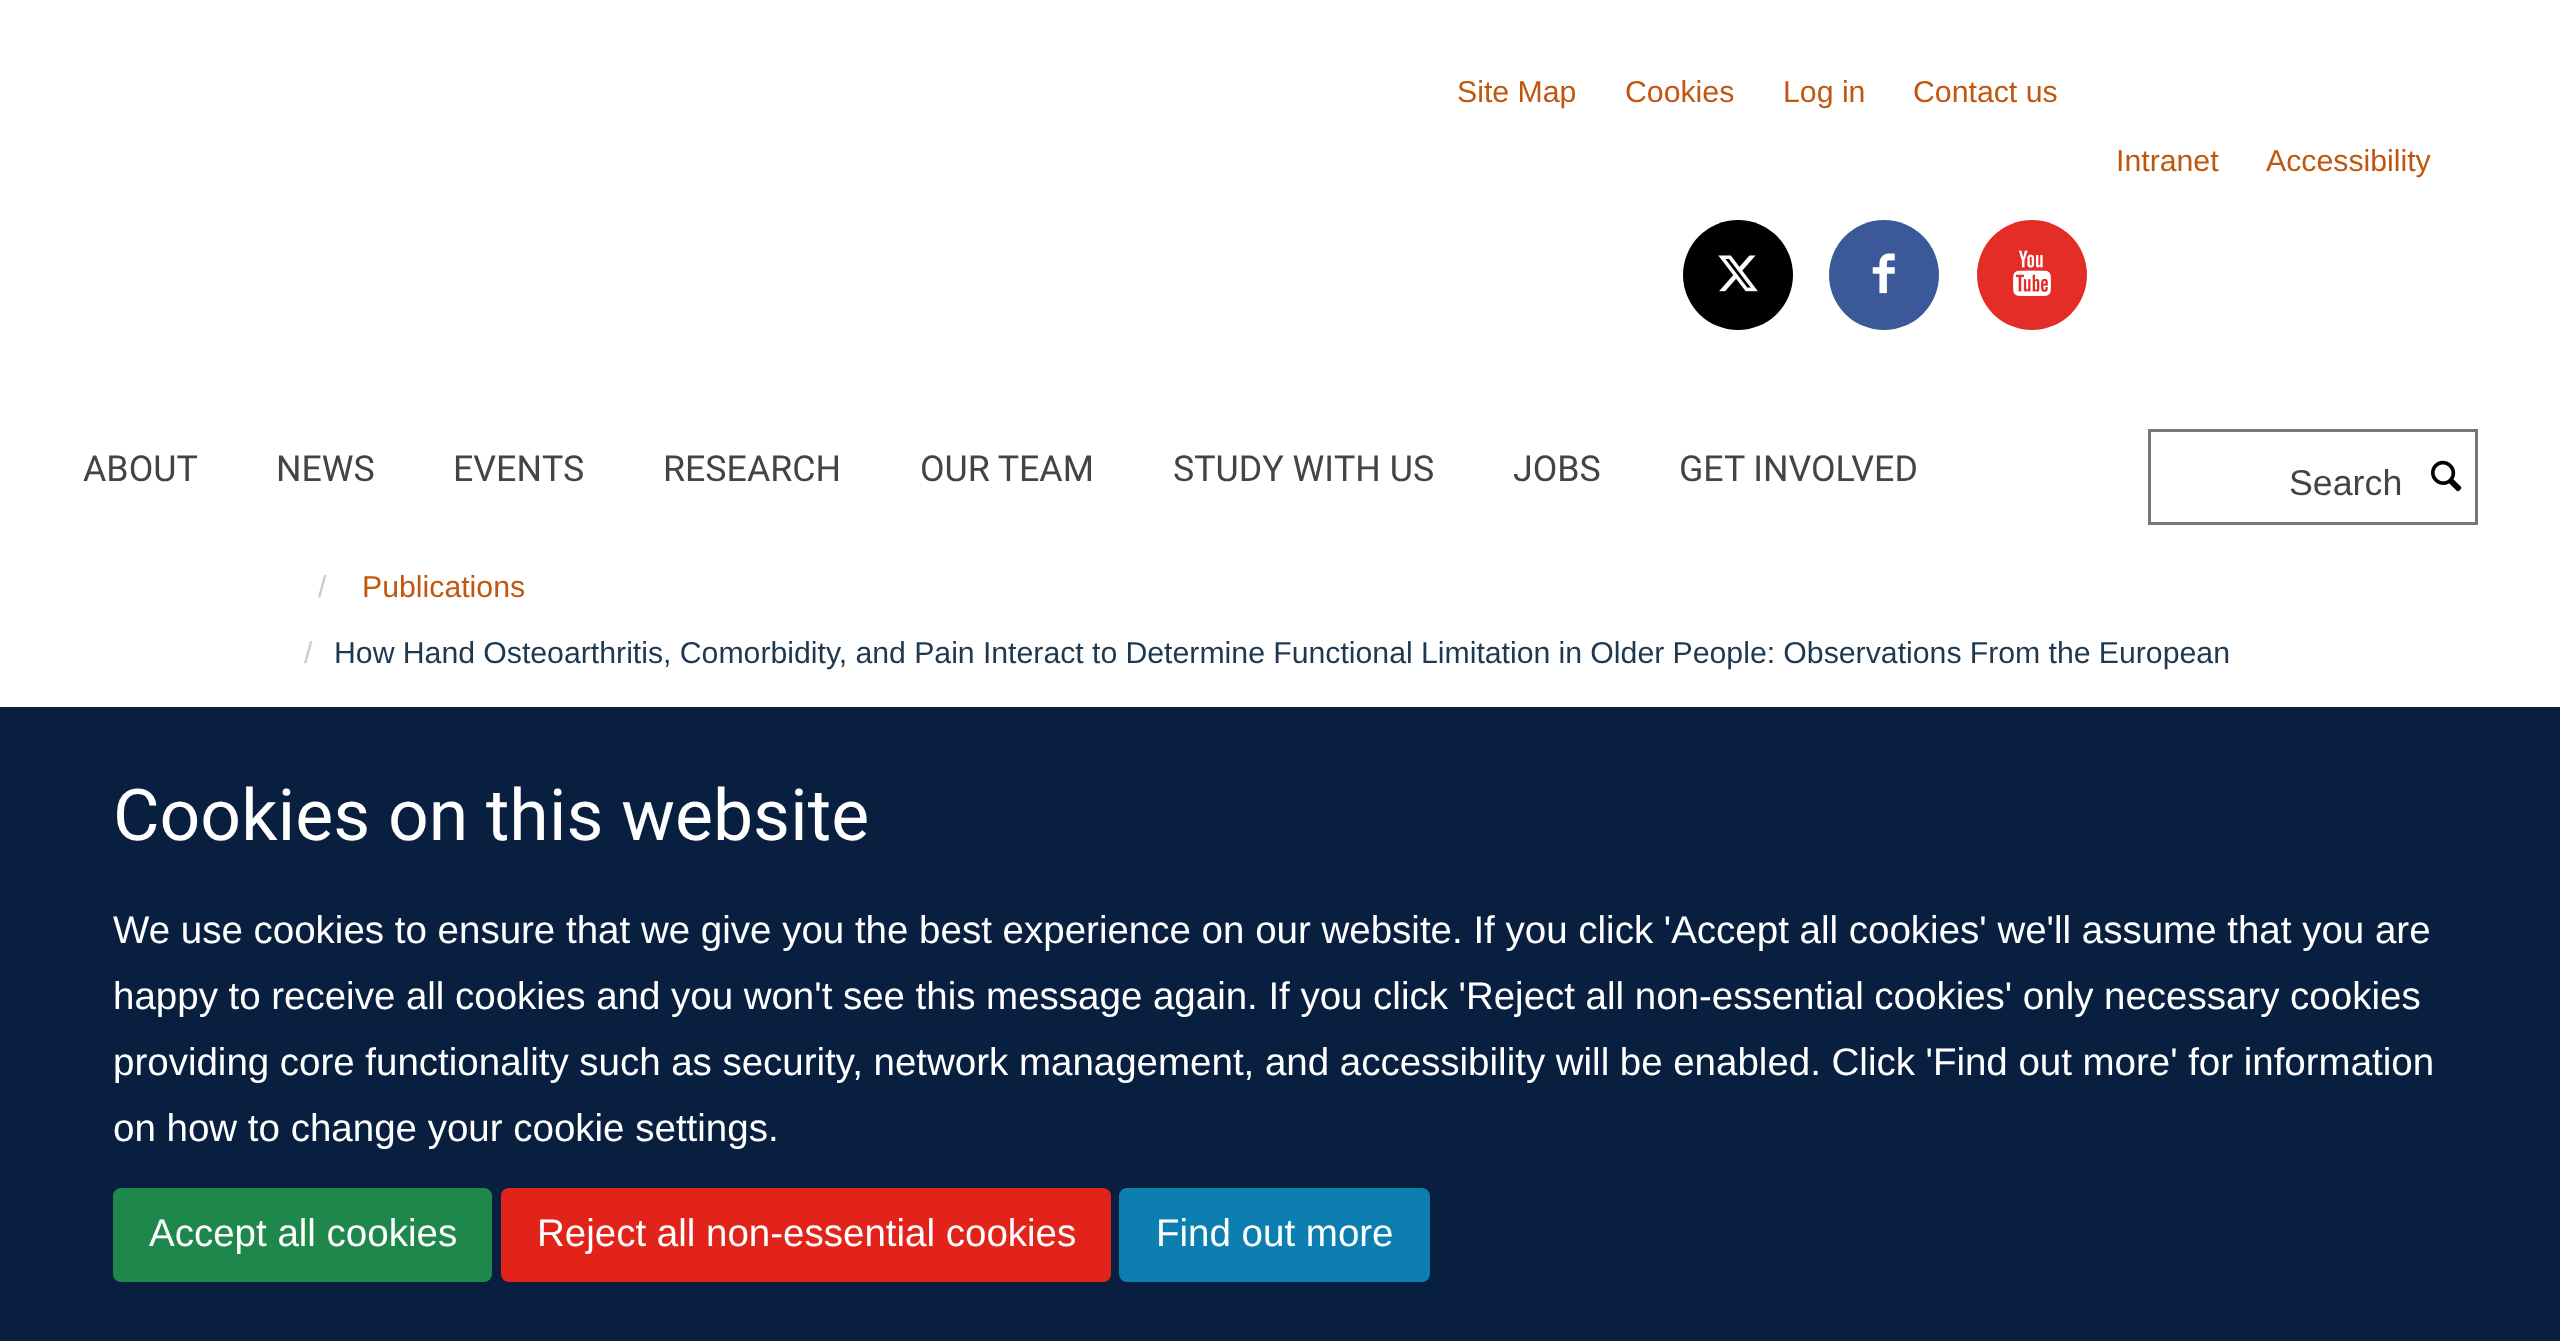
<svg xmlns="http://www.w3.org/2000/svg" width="2560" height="1341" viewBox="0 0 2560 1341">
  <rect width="100%" height="100%" fill="rgb(255,255,255)"/>
  <g font-family="Liberation Sans" font-size="30.25" fill="rgb(193,87,14)">
    <text x="1457" y="102">Site Map</text>
    <text x="1625" y="102">Cookies</text>
    <text x="1783" y="102">Log in</text>
    <text x="1913" y="102">Contact us</text>
    <text x="2116" y="171">Intranet</text>
    <text x="2266" y="171">Accessibility</text>
  </g>
  <circle cx="1738" cy="275" r="55" fill="rgb(0,0,0)"/>
  <image x="1718" y="255" width="40" height="37" href="pic1.png"/>
  <circle cx="1884" cy="275" r="55" fill="rgb(59,89,152)"/>
  <image x="1872" y="253" width="23" height="41" href="pic2.png"/>
  <circle cx="2032" cy="275" r="55" fill="rgb(229,45,39)"/>
  <image x="2013" y="250" width="38" height="47" href="pic3.png"/>
  <g font-family="Heebo" font-size="35.75" fill="rgb(68,68,68)">
    <text x="83" y="481">ABOUT</text>
    <text x="276" y="481">NEWS</text>
    <text x="453" y="481">EVENTS</text>
    <text x="663" y="481">RESEARCH</text>
    <text x="920" y="481">OUR TEAM</text>
    <text x="1173" y="481">STUDY WITH US</text>
    <text x="1513" y="481">JOBS</text>
    <text x="1679" y="481">GET INVOLVED</text>
  </g>
  <rect x="2149.5" y="430.5" width="327" height="93" fill="none" stroke="rgb(119,119,119)" stroke-width="3"/>
  <text x="2289" y="495" font-family="Liberation Sans" font-size="35.75" fill="rgb(68,68,68)">Search</text>
  <image x="2431" y="460" width="31" height="32" href="pic4.png"/>
  <text x="318" y="597" font-family="Liberation Sans" font-size="30.25" fill="rgb(204,204,204)">/</text>
  <text x="362" y="597" font-family="Liberation Sans" font-size="30.25" fill="rgb(193,87,14)">Publications</text>
  <text x="304" y="663" font-family="Liberation Sans" font-size="30.25" fill="rgb(204,204,204)">/</text>
  <text x="334" y="663" word-spacing="-0.2" font-family="Liberation Sans" font-size="30.25" fill="rgb(29,56,80)">How Hand Osteoarthritis, Comorbidity, and Pain Interact to Determine Functional Limitation in Older People: Observations From the European</text>
  <rect x="0" y="707" width="2560" height="634" fill="rgb(9,31,64)"/>
  <text x="113" y="840" font-family="Heebo" font-size="71.5" fill="rgb(255,255,255)">Cookies on this website</text>
  <g font-family="Liberation Sans" font-size="38.5" fill="rgb(255,255,255)">
    <text>
      <tspan x="113" y="943">We use cookies to ensure that we give you the best experience on our website. If you click 'Accept all cookies' we'll assume that you are</tspan>
      <tspan x="113" y="1009" word-spacing="-0.1">happy to receive all cookies and you won't see this message again. If you click 'Reject all non-essential cookies' only necessary cookies</tspan>
      <tspan x="113" y="1075" word-spacing="-0.1">providing core functionality such as security, network management, and accessibility will be enabled. Click 'Find out more' for information</tspan>
      <tspan x="113" y="1141">on how to change your cookie settings.</tspan>
    </text>
  </g>
  <rect x="114.5" y="1189.5" width="376" height="91" rx="6.5" fill="rgb(30,135,75)" stroke="rgb(30,135,75)" stroke-width="3"/>
  <text x="149" y="1246" font-family="Liberation Sans" font-size="38.5" fill="rgb(255,255,255)">Accept all cookies</text>
  <rect x="502.5" y="1189.5" width="607" height="91" rx="6.5" fill="rgb(226,35,26)" stroke="rgb(226,35,26)" stroke-width="3"/>
  <text x="537" y="1246" font-family="Liberation Sans" font-size="38.5" fill="rgb(255,255,255)">Reject all non-essential cookies</text>
  <rect x="1120.5" y="1189.5" width="308" height="91" rx="6.5" fill="rgb(13,126,176)" stroke="rgb(13,126,176)" stroke-width="3"/>
  <text x="1156" y="1246" font-family="Liberation Sans" font-size="38.5" fill="rgb(255,255,255)">Find out more</text>
</svg>
